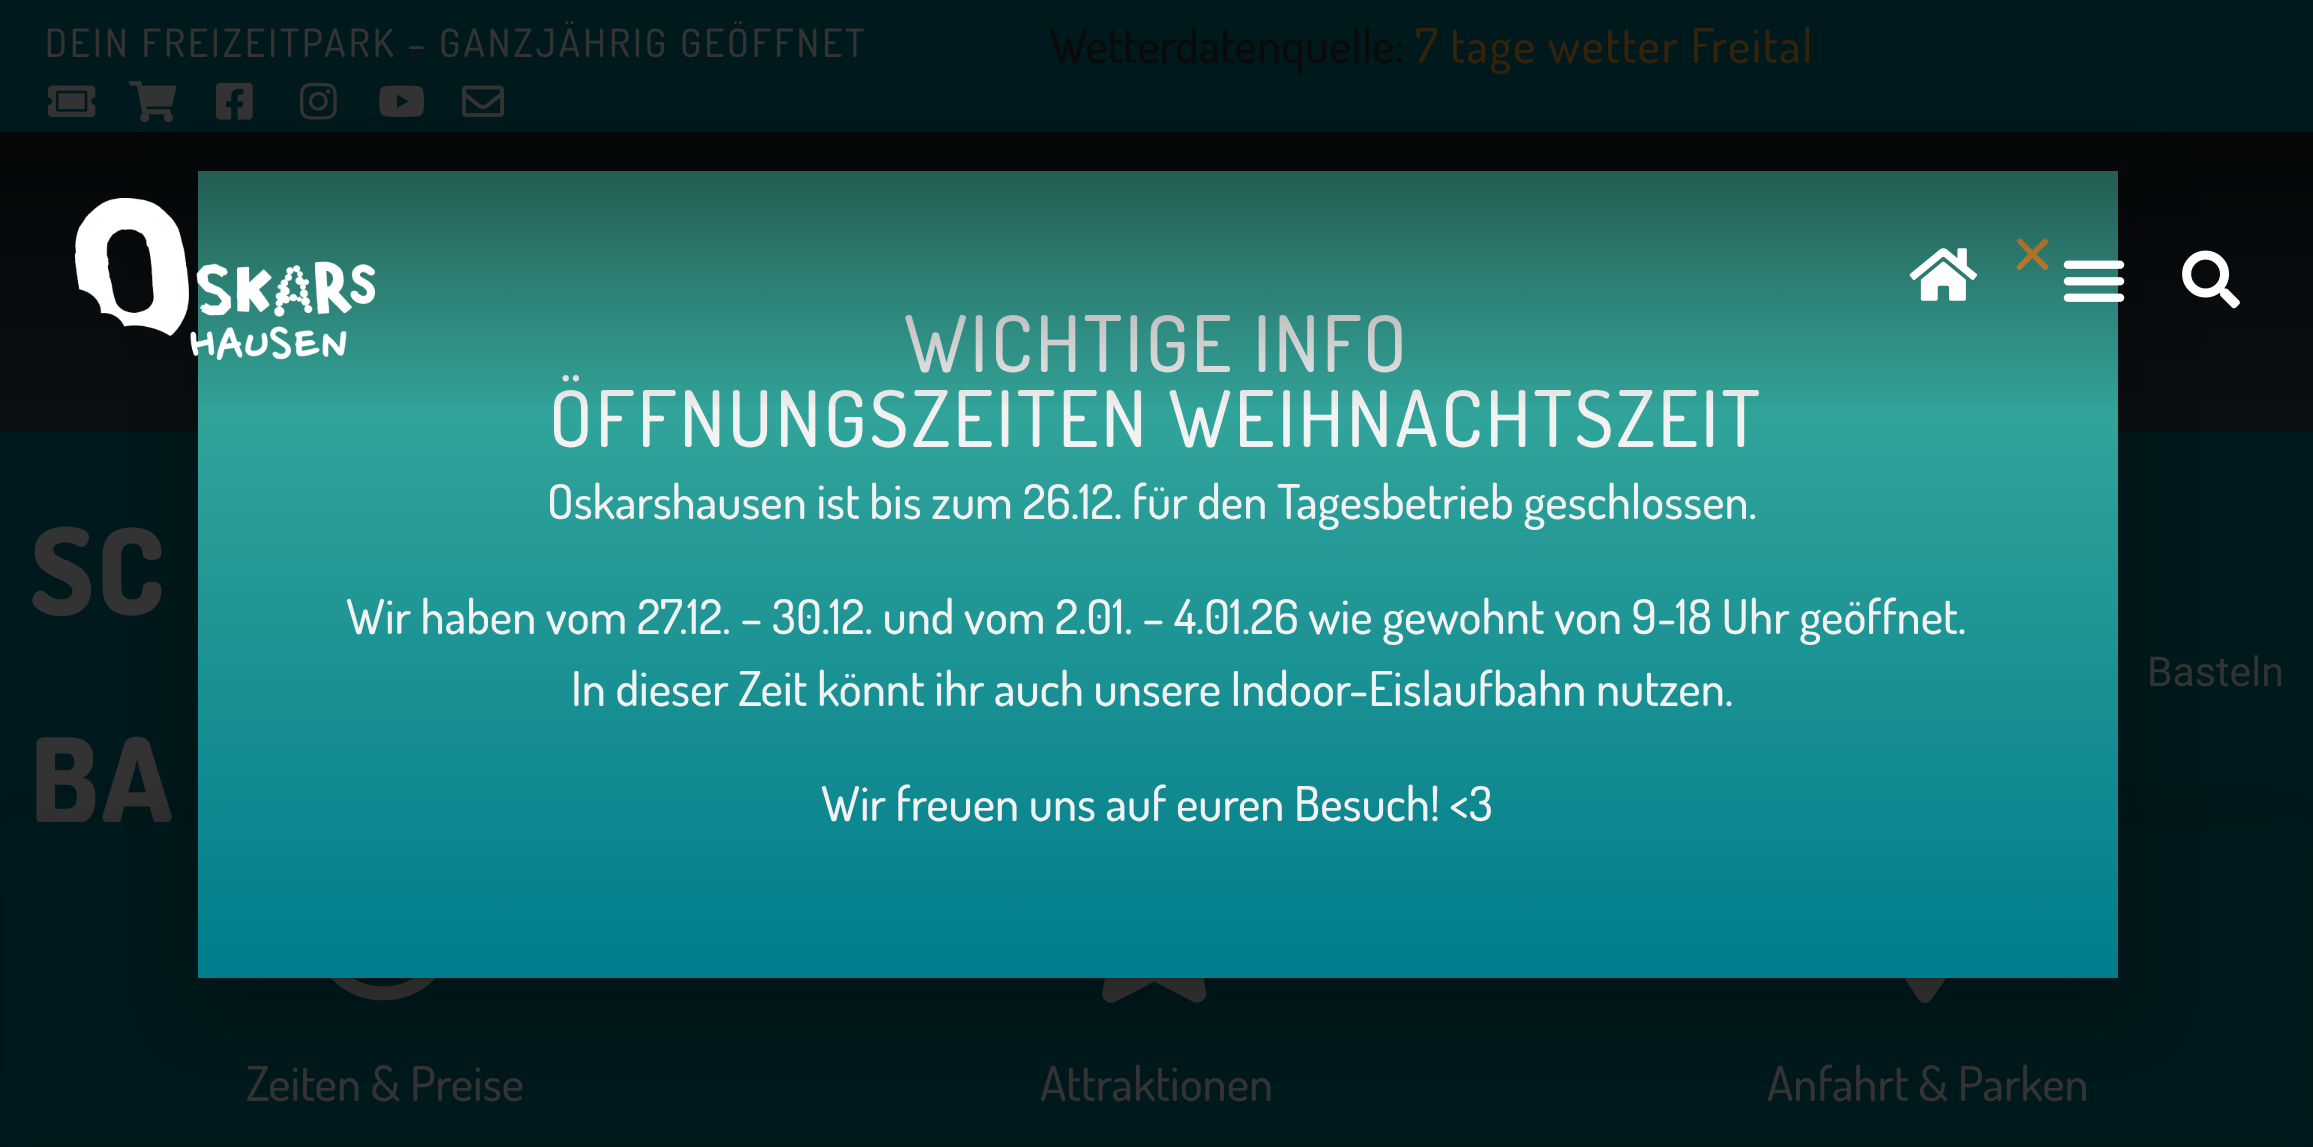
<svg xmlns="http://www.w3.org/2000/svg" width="2313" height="1147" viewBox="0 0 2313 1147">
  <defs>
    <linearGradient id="g1" gradientUnits="userSpaceOnUse" x1="1158" y1="171" x2="1158" y2="978"><stop offset="0" stop-color="rgb(70,180,160)"/><stop offset="1" stop-color="rgb(0,125,140)"/></linearGradient>
    <linearGradient id="g2" gradientUnits="userSpaceOnUse" x1="1157" y1="132" x2="1157" y2="417"><stop offset="0.01" stop-color="rgb(0,0,0)" stop-opacity="0.56"/><stop offset="1" stop-color="rgb(0,0,0)" stop-opacity="0"/></linearGradient>
  </defs>
  <rect width="100%" height="100%" fill="rgb(0,25,28)"/>
  <text x="45" y="57" font-family="Dosis" font-size="39" font-weight="500" letter-spacing="3" fill="rgb(51,51,51)">DEIN FREIZEITPARK – GANZJÄHRIG GEÖFFNET</text>
  <text x="1049" y="63" font-family="Dosis" font-size="48" font-weight="500" fill="rgb(10,10,10)">Wetterdatenquelle:</text>
  <text x="1415" y="63" font-family="Dosis" font-size="48" font-weight="500" letter-spacing="1.5" fill="rgb(51,34,12)">7 tage wetter Freital</text>
  <image x="48" y="85" width="48" height="32" href="pic1.png"/>
  <image x="129" y="81" width="48" height="42" href="pic2.png"/>
  <image x="216" y="82" width="37" height="38" href="pic3.png"/>
  <image x="300" y="82" width="37" height="38" href="pic4.png"/>
  <image x="379" y="85" width="45" height="32" href="pic5.png"/>
  <image x="462" y="85" width="42" height="32" href="pic6.png"/>
  <rect x="0" y="132" width="2313" height="300" fill="rgb(10,15,18)"/>
  <text x="30" y="825" font-family="Dosis" font-size="120" font-weight="800" letter-spacing="3" fill="rgb(51,51,51)">BA</text>
  <rect x="30" y="852" width="2253" height="267" fill="rgba(0,0,0,0.5)" filter="blur(30px)"/>
  <rect x="3" y="822" width="2307" height="324" fill="rgb(0,25,28)"/>
  <image x="330" y="978" width="106" height="23" href="pic12.png"/>
  <image x="1102" y="978" width="105" height="25" href="pic13.png"/>
  <path d="M1919 1000L1896 966C1886 952 1873 936 1870 920C1868 913 1869 905 1870 898C1872 887 1878 877 1885 869C1911 844 1952 848 1972 878C1977 885 1980 894 1981 903C1982 908 1982 914 1981 920C1979 930 1973 939 1967 947L1947 977C1944 981 1932 1000 1929 1002C1925 1004 1921 1003 1919 1000ZM1909 926C1930 947 1964 914 1942 892C1920 871 1887 904 1909 926Z" fill="rgb(51,51,51)"/>
  <rect x="195" y="186" width="1938" height="825" fill="rgba(0,0,0,0.2)" filter="blur(34.5px)"/>
  <rect x="198" y="171" width="1920" height="807" fill="url(#g1)"/>
  <image x="2016" y="238" width="33" height="32" href="pic11.png"/>
  <g font-family="Dosis" font-size="78" font-weight="500" letter-spacing="3" fill="rgb(242,242,242)">
    <text x="904" y="372">WICHTIGE INFO</text>
    <text x="549" y="447">ÖFFNUNGSZEITEN WEIHNACHTSZEIT</text>
  </g>
  <rect x="0" y="132" width="2313" height="274" fill="url(#g2)"/>
  <image x="75" y="198" width="300" height="162" href="pic7.png"/>
  <image x="1909" y="248" width="69" height="53" href="pic8.png"/>
  <image x="2063" y="260" width="62" height="42" href="pic9.png"/>
  <image x="2182" y="250" width="58" height="59" href="pic10.png"/>
  <g font-family="Dosis" font-size="48" font-weight="500" fill="rgb(242,242,242)">
    <text x="547" y="519">Oskarshausen ist bis zum 26.12. für den Tagesbetrieb geschlossen.</text>
    <text x="346" y="634">Wir haben vom 27.12. – 30.12. und vom 2.01. – 4.01.26 wie gewohnt von 9-18 Uhr geöffnet.</text>
    <text x="571" y="706">In dieser Zeit könnt ihr auch unsere Indoor-Eislaufbahn nutzen.</text>
    <text x="821" y="821">Wir freuen uns auf euren Besuch! &lt;3</text>
  </g>
  <text x="30" y="615" font-family="Dosis" font-size="120" font-weight="800" letter-spacing="3" fill="rgb(51,51,51)">SC</text>
  <text x="2147" y="686" font-family="Roboto" font-size="41" fill="rgb(51,51,51)">Basteln</text>
  <g font-family="Dosis" font-size="48" font-weight="500" fill="rgb(51,51,51)">
    <text x="246" y="1101">Zeiten &amp; Preise</text>
    <text x="1040" y="1101">Attraktionen</text>
    <text x="1767" y="1101">Anfahrt &amp; Parken</text>
  </g>
</svg>
